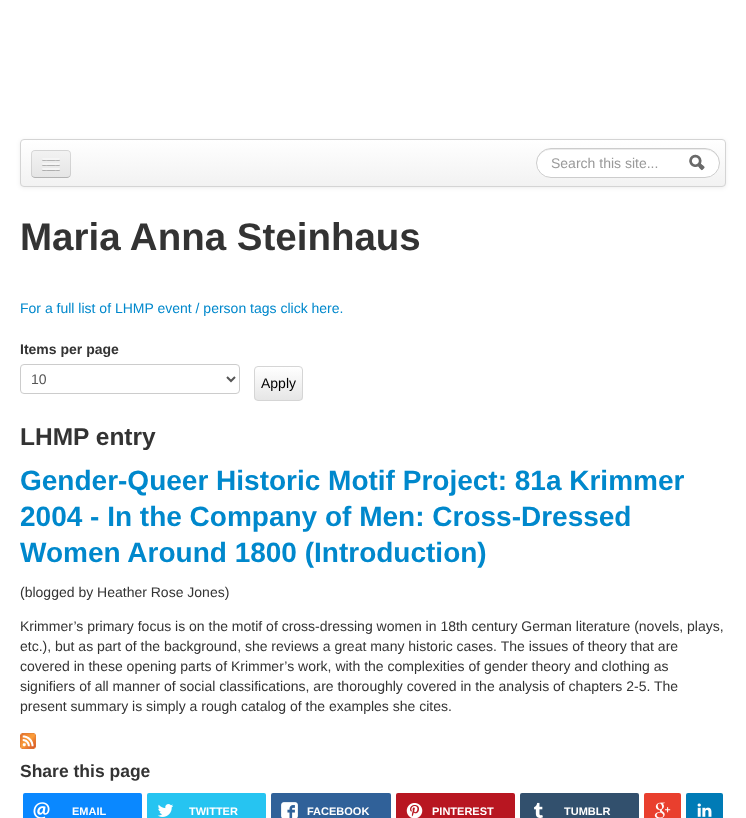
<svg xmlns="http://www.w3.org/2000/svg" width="746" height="818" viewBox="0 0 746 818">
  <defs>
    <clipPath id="clip1"><rect x="20" y="139" width="706" height="48" rx="4"/></clipPath>
    <linearGradient id="g1" gradientUnits="userSpaceOnUse" x1="373" y1="140" x2="373" y2="186"><stop offset="0" stop-color="rgb(255,255,255)"/><stop offset="1" stop-color="rgb(242,242,242)"/></linearGradient>
    <clipPath id="clip2"><rect x="31" y="150" width="40" height="28" rx="4"/></clipPath>
    <linearGradient id="g2" gradientUnits="userSpaceOnUse" x1="51" y1="151" x2="51" y2="177"><stop offset="0" stop-color="rgb(242,242,242)"/><stop offset="1" stop-color="rgb(229,229,229)"/></linearGradient>
    <clipPath id="clip3"><rect x="254" y="366" width="49" height="35" rx="4"/></clipPath>
    <linearGradient id="g3" gradientUnits="userSpaceOnUse" x1="279" y1="367" x2="279" y2="400"><stop offset="0" stop-color="rgb(255,255,255)"/><stop offset="1" stop-color="rgb(230,230,230)"/></linearGradient>
  </defs>
  <rect width="100%" height="100%" fill="rgb(255,255,255)"/>
  <rect x="20" y="140" width="706" height="48" rx="4" fill="rgba(0,0,0,0.07)" filter="blur(2px)"/>
  <g clip-path="url(#clip1)">
    <rect x="20" y="140" width="706" height="46" fill="url(#g1)"/>
  </g>
  <rect x="20.5" y="139.5" width="705" height="47" rx="3.5" fill="none" stroke="rgb(212,212,212)"/>
  <rect x="31" y="150" width="40" height="28" rx="4" fill="rgb(237,237,237)"/>
  <g clip-path="url(#clip2)">
    <rect x="31" y="151" width="40" height="26" fill="url(#g2)"/>
  </g>
  <path d="M69.5 176.5C69 177 68 177.5 67 177.5H35C34 177.5 33 177 32.5 176.5" fill="none" stroke="rgb(178,178,178)"/>
  <path d="M32.5 176.5C32 176 31.5 175 31.5 174V154C31.5 153 32 152 32.5 151.5C33 151 34 150.5 35 150.5H67C68 150.5 69 151 69.5 151.5C70 152 70.5 153 70.5 154V174C70.5 175 70 176 69.5 176.5" fill="none" stroke="rgba(0,0,0,0.1)"/>
  <path d="M42 159.5C41 161.5 45.5 161 45.5 161H56.5C56.5 161 61 161.5 60 159.5C59 160.5 52.5 160 51 160C49.5 160 43 160.5 42 159.5Z" fill="rgb(178,178,178)"/>
  <rect x="42" y="158" width="18" height="2" rx="1" fill="rgb(245,245,245)"/>
  <path d="M42 164.5C41 166.5 45.5 166 45.5 166H56.5C56.5 166 61 166.5 60 164.5C59 165.5 52.5 165 51 165C49.5 165 43 165.5 42 164.5Z" fill="rgb(176,176,176)"/>
  <rect x="42" y="163" width="18" height="2" rx="1" fill="rgb(245,245,245)"/>
  <path d="M42 169.5C41 171.5 45.5 171 45.5 171H56.5C56.5 171 61 171.5 60 169.5C59 170.5 52.5 170 51 170C49.5 170 43 170.5 42 169.5Z" fill="rgb(174,174,174)"/>
  <rect x="42" y="168" width="18" height="2" rx="1" fill="rgb(245,245,245)"/>
  <rect x="536" y="148" width="184" height="30" rx="15" fill="rgb(255,255,255)"/>
  <path d="M551 150H705C713 150 719 156 719 163C720 143 690 149 679 149H577C566 149 536 143 537 163C537 156 543 150 551 150Z" fill="rgb(236,236,236)"/>
  <rect x="536.5" y="148.5" width="183" height="29" rx="14.5" fill="none" stroke="rgb(204,204,204)"/>
  <text x="551" y="168" font-family="Liberation Sans" font-size="14" fill="rgb(153,153,153)">Search this site...</text>
  <image x="689" y="154" width="16" height="17" href="pic1.png"/>
  <text x="20" y="250" font-family="Liberation Sans" font-size="38.5" font-weight="bold" fill="rgb(51,51,51)">Maria Anna Steinhaus</text>
  <text x="20" y="313" font-family="Liberation Sans" font-size="14" fill="rgb(0,136,204)">For a full list of LHMP event / person tags click here.</text>
  <text x="20" y="354" font-family="Liberation Sans" font-size="14" font-weight="bold" fill="rgb(51,51,51)">Items per page</text>
  <rect x="20.5" y="364.5" width="219" height="29" rx="3.5" fill="none" stroke="rgb(204,204,204)"/>
  <path d="M227 377L231 381L235 377" fill="none" stroke="rgb(85,85,85)" stroke-width="2"/>
  <text x="31" y="384" font-family="Liberation Sans" font-size="14" fill="rgb(85,85,85)">10</text>
  <g clip-path="url(#clip3)">
    <rect x="254" y="367" width="49" height="33" fill="url(#g3)"/>
  </g>
  <rect x="254.5" y="366.5" width="48" height="34" rx="3.5" fill="none" stroke="rgb(213,213,213)"/>
  <text x="261" y="388" font-family="Liberation Sans" font-size="14" fill="rgb(0,0,0)">Apply</text>
  <text x="20" y="445" font-family="Liberation Sans" font-size="24.5" font-weight="bold" fill="rgb(51,51,51)">LHMP entry</text>
  <g font-family="Liberation Sans" font-size="28" font-weight="bold" fill="rgb(0,136,204)">
    <text>
      <tspan x="20" y="490">Gender-Queer Historic Motif Project: 81a Krimmer</tspan>
      <tspan x="20" y="526">2004 - In the Company of Men: Cross-Dressed</tspan>
      <tspan x="20" y="562">Women Around 1800 (Introduction)</tspan>
    </text>
  </g>
  <g font-family="Liberation Sans" font-size="14" fill="rgb(51,51,51)">
    <text x="20" y="597">(blogged by Heather Rose Jones)</text>
    <text>
      <tspan x="20" y="631">Krimmer’s primary focus is on the motif of cross-dressing women in 18th century German literature (novels, plays,</tspan>
      <tspan x="20" y="651">etc.), but as part of the background, she reviews a great many historic cases. The issues of theory that are</tspan>
      <tspan x="20" y="671">covered in these opening parts of Krimmer’s work, with the complexities of gender theory and clothing as</tspan>
      <tspan x="20" y="691">signifiers of all manner of social classifications, are thoroughly covered in the analysis of chapters 2-5. The</tspan>
      <tspan x="20" y="711">present summary is simply a rough catalog of the examples she cites.</tspan>
    </text>
  </g>
  <image x="20" y="733" width="16" height="16" href="pic2.png"/>
  <text x="20" y="777" font-family="Liberation Sans" font-size="17.5" font-weight="bold" fill="rgb(51,51,51)">Share this page</text>
  <rect x="23" y="793" width="119" height="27" rx="2" fill="rgb(10,136,255)"/>
  <image x="33" y="802" width="17" height="16" href="pic3.png"/>
  <text x="72" y="815" font-family="Liberation Sans" font-size="11" font-weight="bold" fill="rgb(255,255,255)">EMAIL</text>
  <rect x="147" y="793" width="119" height="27" rx="2" fill="rgb(38,196,241)"/>
  <image x="157" y="804" width="17" height="13" href="pic4.png"/>
  <text x="189" y="815" font-family="Liberation Sans" font-size="11" font-weight="bold" fill="rgb(255,255,255)">TWITTER</text>
  <rect x="271" y="793" width="120" height="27" rx="2" fill="rgb(48,97,153)"/>
  <image x="281" y="802" width="17" height="16" href="pic5.png"/>
  <text x="307" y="815" font-family="Liberation Sans" font-size="11" font-weight="bold" fill="rgb(255,255,255)">FACEBOOK</text>
  <rect x="396" y="793" width="119" height="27" rx="2" fill="rgb(184,22,33)"/>
  <image x="406" y="803" width="17" height="15" href="pic6.png"/>
  <text x="432" y="815" font-family="Liberation Sans" font-size="11" font-weight="bold" fill="rgb(255,255,255)">PINTEREST</text>
  <rect x="520" y="793" width="119" height="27" rx="2" fill="rgb(50,80,109)"/>
  <image x="534" y="802" width="9" height="16" href="pic7.png"/>
  <text x="564" y="815" font-family="Liberation Sans" font-size="11" font-weight="bold" fill="rgb(255,255,255)">TUMBLR</text>
  <rect x="644" y="793" width="37" height="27" rx="2" fill="rgb(233,63,46)"/>
  <image x="654" y="802" width="17" height="16" href="pic8.png"/>
  <rect x="686" y="793" width="37" height="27" rx="2" fill="rgb(0,123,182)"/>
  <image x="697" y="803" width="15" height="14" href="pic9.png"/>
</svg>
